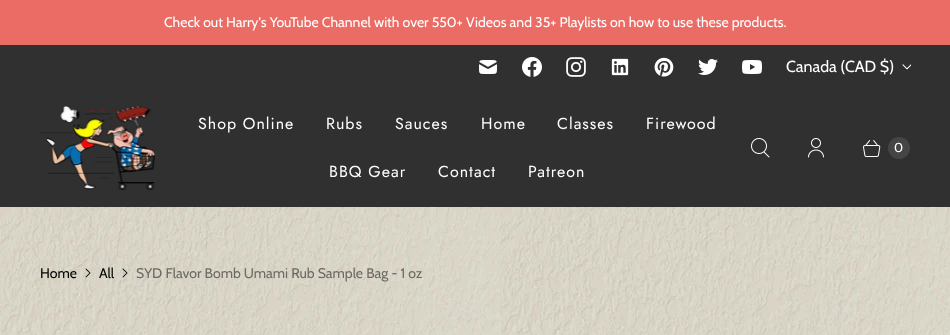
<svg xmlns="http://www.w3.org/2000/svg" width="950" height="335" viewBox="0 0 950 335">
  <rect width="100%" height="100%" fill="rgb(255,255,255)"/>
  <image x="0" y="207" width="950" height="128" href="pic1.png"/>
  <rect x="0" y="0" width="950" height="45" fill="rgb(235,107,101)"/>
  <text x="164" y="27" font-family="Cabin" font-size="14" fill="rgb(255,255,255)">Check out Harry's YouTube Channel with over 550+ Videos and 35+ Playlists on how to use these products.</text>
  <rect x="0" y="45" width="950" height="162" fill="rgb(48,48,48)"/>
  <image x="479" y="60" width="18" height="14" href="pic2.png"/>
  <image x="522" y="57" width="20" height="20" href="pic3.png"/>
  <image x="566" y="57" width="20" height="20" href="pic4.png"/>
  <image x="611" y="58" width="18" height="18" href="pic5.png"/>
  <image x="654" y="57" width="20" height="20" href="pic6.png"/>
  <image x="698" y="59" width="20" height="16" href="pic7.png"/>
  <image x="742" y="60" width="20" height="14" href="pic8.png"/>
  <text x="786" y="72" font-family="Cabin" font-size="16" fill="rgb(255,255,255)">Canada (CAD $)</text>
  <image x="902" y="64" width="9" height="6" href="pic9.png"/>
  <image x="40" y="106" width="115" height="84" href="pic10.png"/>
  <g font-family="Jost" font-size="16" letter-spacing="1" fill="rgb(255,255,255)">
    <text x="198" y="129">Shop Online</text>
    <text x="326" y="129">Rubs</text>
    <text x="395" y="129">Sauces</text>
    <text x="481" y="129">Home</text>
    <text x="557" y="129">Classes</text>
    <text x="646" y="129">Firewood</text>
    <text x="329" y="177">BBQ Gear</text>
    <text x="438" y="177">Contact</text>
    <text x="528" y="177">Patreon</text>
  </g>
  <image x="751" y="138" width="19" height="20" href="pic11.png"/>
  <image x="808" y="138" width="16" height="20" href="pic12.png"/>
  <image x="863" y="140" width="18" height="17" href="pic13.png"/>
  <circle cx="899" cy="148" r="11" fill="rgb(69,69,69)"/>
  <text x="894" y="152" font-family="Cabin" font-size="13" fill="rgb(255,255,255)">0</text>
  <text x="40" y="278" font-family="Cabin" font-size="14" fill="rgb(0,0,0)">Home</text>
  <image x="85" y="268" width="6" height="10" href="pic14.png"/>
  <text x="99" y="278" font-family="Cabin" font-size="14" fill="rgb(0,0,0)">All</text>
  <image x="122" y="268" width="6" height="10" href="pic15.png"/>
  <text x="136" y="278" font-family="Cabin" font-size="14" fill="rgb(108,106,99)">SYD Flavor Bomb Umami Rub Sample Bag - 1 oz</text>
</svg>
